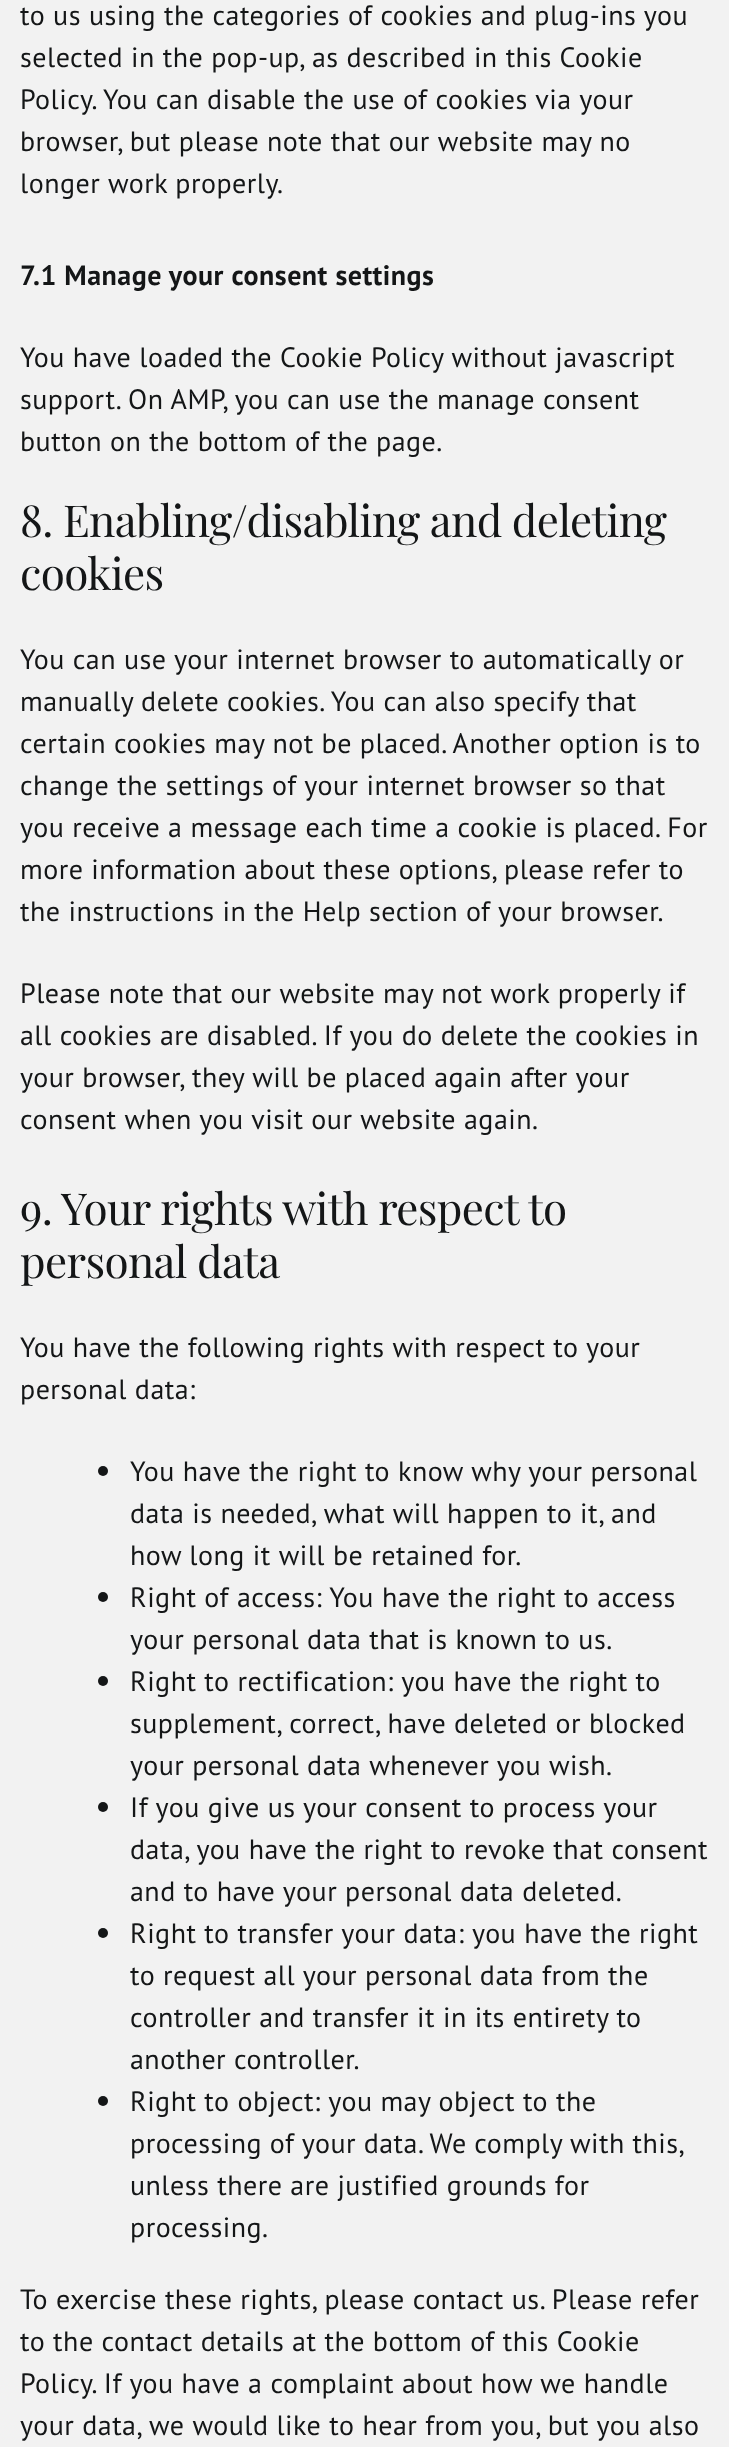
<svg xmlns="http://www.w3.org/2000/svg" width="729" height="2447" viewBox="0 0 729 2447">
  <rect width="100%" height="100%" fill="rgb(242,242,242)"/>
  <g font-family="PT Sans" font-size="28" letter-spacing="0.48" fill="rgb(20,22,23)">
    <text>
      <tspan x="20" y="25">to us using the categories of cookies and plug-ins you</tspan>
      <tspan x="20" y="67">selected in the pop-up, as described in this Cookie</tspan>
      <tspan x="20" y="109">Policy. You can disable the use of cookies via your</tspan>
      <tspan x="20" y="151">browser, but please note that our website may no</tspan>
      <tspan x="20" y="193">longer work properly.</tspan>
    </text>
  </g>
  <text x="20" y="285" font-family="PT Sans" font-size="28" font-weight="bold" letter-spacing="0.48" fill="rgb(20,22,23)">7.1 Manage your consent settings</text>
  <g font-family="PT Sans" font-size="28" letter-spacing="0.48" fill="rgb(20,22,23)">
    <text>
      <tspan x="20" y="367">You have loaded the Cookie Policy without javascript</tspan>
      <tspan x="20" y="409">support. On AMP, you can use the manage consent</tspan>
      <tspan x="20" y="451">button on the bottom of the page.</tspan>
    </text>
  </g>
  <g font-family="Playfair Display" font-size="44" letter-spacing="-0.65" fill="rgb(20,22,23)">
    <text>
      <tspan x="20" y="537">8. Enabling/disabling and deleting</tspan>
      <tspan x="20" y="590">cookies</tspan>
    </text>
  </g>
  <g font-family="PT Sans" font-size="28" letter-spacing="0.48" fill="rgb(20,22,23)">
    <text>
      <tspan x="20" y="669">You can use your internet browser to automatically or</tspan>
      <tspan x="20" y="711">manually delete cookies. You can also specify that</tspan>
      <tspan x="20" y="753">certain cookies may not be placed. Another option is to</tspan>
      <tspan x="20" y="795">change the settings of your internet browser so that</tspan>
      <tspan x="20" y="837">you receive a message each time a cookie is placed. For</tspan>
      <tspan x="20" y="879">more information about these options, please refer to</tspan>
      <tspan x="20" y="921">the instructions in the Help section of your browser.</tspan>
    </text>
    <text>
      <tspan x="20" y="1003">Please note that our website may not work properly if</tspan>
      <tspan x="20" y="1045">all cookies are disabled. If you do delete the cookies in</tspan>
      <tspan x="20" y="1087">your browser, they will be placed again after your</tspan>
      <tspan x="20" y="1129">consent when you visit our website again.</tspan>
    </text>
  </g>
  <g font-family="Playfair Display" font-size="44" letter-spacing="-0.65" fill="rgb(20,22,23)">
    <text>
      <tspan x="20" y="1225">9. Your rights with respect to</tspan>
      <tspan x="20" y="1278">personal data</tspan>
    </text>
  </g>
  <g font-family="PT Sans" font-size="28" letter-spacing="0.48" fill="rgb(20,22,23)">
    <text>
      <tspan x="20" y="1357">You have the following rights with respect to your</tspan>
      <tspan x="20" y="1399">personal data:</tspan>
    </text>
  </g>
  <circle cx="103" cy="1471" r="5" fill="rgb(20,22,23)"/>
  <g font-family="PT Sans" font-size="28" letter-spacing="0.48" fill="rgb(20,22,23)">
    <text>
      <tspan x="130" y="1481">You have the right to know why your personal</tspan>
      <tspan x="130" y="1523">data is needed, what will happen to it, and</tspan>
      <tspan x="130" y="1565">how long it will be retained for.</tspan>
    </text>
  </g>
  <circle cx="103" cy="1597" r="5" fill="rgb(20,22,23)"/>
  <g font-family="PT Sans" font-size="28" letter-spacing="0.48" fill="rgb(20,22,23)">
    <text>
      <tspan x="130" y="1607">Right of access: You have the right to access</tspan>
      <tspan x="130" y="1649">your personal data that is known to us.</tspan>
    </text>
  </g>
  <circle cx="103" cy="1681" r="5" fill="rgb(20,22,23)"/>
  <g font-family="PT Sans" font-size="28" letter-spacing="0.48" fill="rgb(20,22,23)">
    <text>
      <tspan x="130" y="1691">Right to rectification: you have the right to</tspan>
      <tspan x="130" y="1733">supplement, correct, have deleted or blocked</tspan>
      <tspan x="130" y="1775">your personal data whenever you wish.</tspan>
    </text>
  </g>
  <circle cx="103" cy="1807" r="5" fill="rgb(20,22,23)"/>
  <g font-family="PT Sans" font-size="28" letter-spacing="0.48" fill="rgb(20,22,23)">
    <text>
      <tspan x="130" y="1817">If you give us your consent to process your</tspan>
      <tspan x="130" y="1859">data, you have the right to revoke that consent</tspan>
      <tspan x="130" y="1901">and to have your personal data deleted.</tspan>
    </text>
  </g>
  <circle cx="103" cy="1933" r="5" fill="rgb(20,22,23)"/>
  <g font-family="PT Sans" font-size="28" letter-spacing="0.48" fill="rgb(20,22,23)">
    <text>
      <tspan x="130" y="1943">Right to transfer your data: you have the right</tspan>
      <tspan x="130" y="1985">to request all your personal data from the</tspan>
      <tspan x="130" y="2027">controller and transfer it in its entirety to</tspan>
      <tspan x="130" y="2069">another controller.</tspan>
    </text>
  </g>
  <circle cx="103" cy="2101" r="5" fill="rgb(20,22,23)"/>
  <g font-family="PT Sans" font-size="28" letter-spacing="0.48" fill="rgb(20,22,23)">
    <text>
      <tspan x="130" y="2111">Right to object: you may object to the</tspan>
      <tspan x="130" y="2153" word-spacing="-0.25">processing of your data. We comply with this,</tspan>
      <tspan x="130" y="2195">unless there are justified grounds for</tspan>
      <tspan x="130" y="2237">processing.</tspan>
    </text>
    <text>
      <tspan x="20" y="2309">To exercise these rights, please contact us. Please refer</tspan>
      <tspan x="20" y="2351">to the contact details at the bottom of this Cookie</tspan>
      <tspan x="20" y="2393">Policy. If you have a complaint about how we handle</tspan>
      <tspan x="20" y="2435">your data, we would like to hear from you, but you also</tspan>
    </text>
  </g>
</svg>
